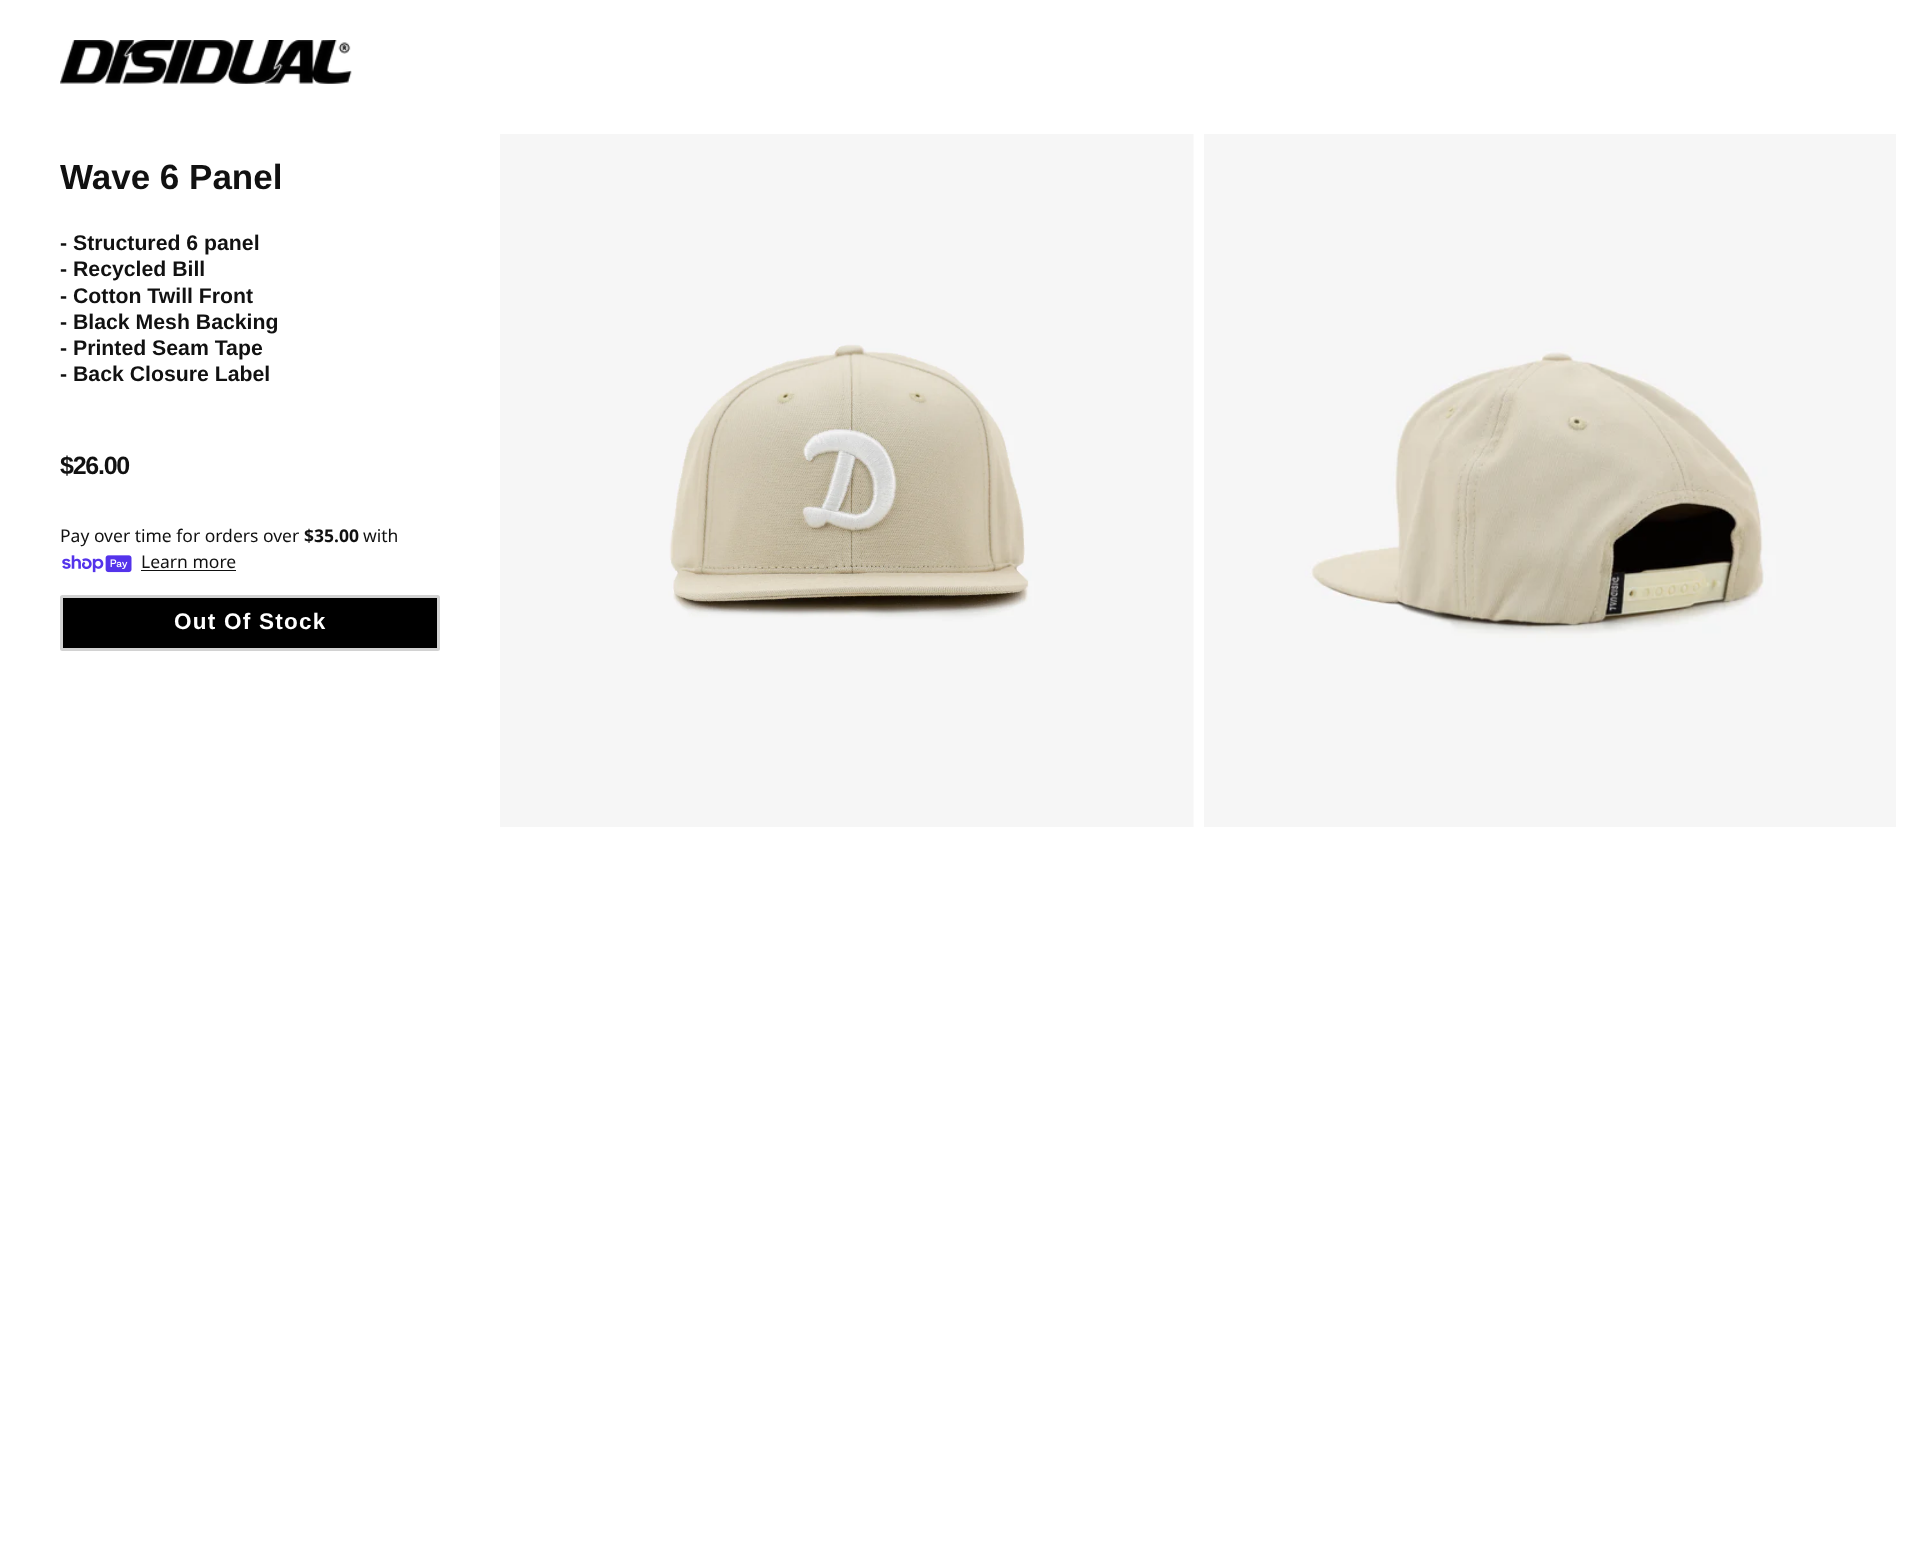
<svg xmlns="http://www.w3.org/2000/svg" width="1906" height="1564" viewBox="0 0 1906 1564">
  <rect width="100%" height="100%" fill="rgb(255,255,255)"/>
  <image x="60" y="40" width="292" height="44" href="pic1.png"/>
  <text x="60" y="189" font-family="Liberation Sans" font-size="35" font-weight="bold" fill="rgb(17,17,17)">Wave 6 Panel</text>
  <g font-family="Liberation Sans" font-size="21.25" font-weight="bold" fill="rgb(17,17,17)">
    <text>
      <tspan x="60" y="250">- Structured 6 panel</tspan>
      <tspan x="60" y="276">- Recycled Bill</tspan>
      <tspan x="60" y="303">- Cotton Twill Front</tspan>
      <tspan x="60" y="329">- Black Mesh Backing</tspan>
      <tspan x="60" y="355">- Printed Seam Tape</tspan>
      <tspan x="60" y="381">- Back Closure Label</tspan>
    </text>
  </g>
  <text x="60" y="474" font-family="Liberation Sans" font-size="25" font-weight="bold" letter-spacing="-1.25" fill="rgb(17,17,17)">$26.00</text>
  <text x="60" y="542" font-family="Noto Sans" font-size="17.5" fill="rgb(17,17,17)">Pay over time for orders over</text>
  <text x="304" y="542" font-family="Noto Sans" font-size="17.5" font-weight="bold" fill="rgb(17,17,17)">$35.00</text>
  <text x="363" y="542" font-family="Noto Sans" font-size="17.5" fill="rgb(17,17,17)">with</text>
  <image x="62" y="555" width="70" height="18" href="pic2.png"/>
  <text x="141" y="568" font-family="Noto Sans" font-size="17.5" fill="rgb(17,17,17)">Learn more</text>
  <rect x="141" y="570" width="95" height="1" fill="rgb(17,17,17)"/>
  <rect x="61.5" y="596.5" width="377" height="53" rx="1" fill="rgb(0,0,0)" stroke="rgb(210,210,210)" stroke-width="3"/>
  <text x="174" y="629" font-family="Liberation Sans" font-size="22.5" font-weight="bold" letter-spacing="1.25" fill="rgb(255,255,255)">Out Of Stock</text>
  <image x="500" y="134" width="694" height="693" href="pic3.png"/>
  <image x="1204" y="134" width="692" height="693" href="pic4.png"/>
</svg>
